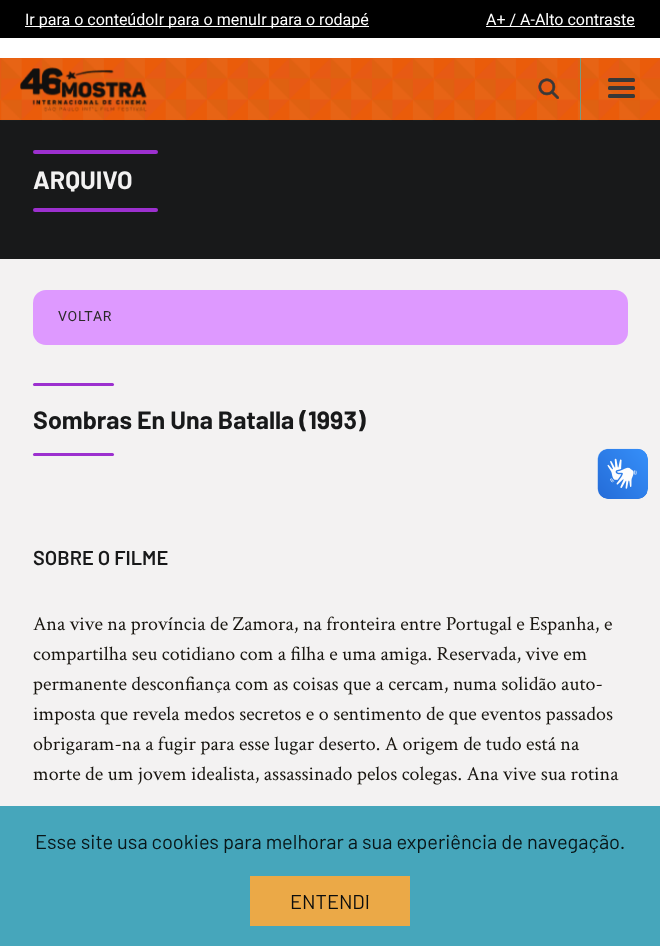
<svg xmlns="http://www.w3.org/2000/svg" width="660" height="946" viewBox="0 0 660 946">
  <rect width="100%" height="100%" fill="rgb(255,255,255)"/>
  <rect x="0" y="0" width="660" height="38" fill="rgb(0,0,0)"/>
  <rect x="25" y="26" width="344" height="1" fill="rgb(255,255,255)"/>
  <g font-family="Roboto" font-size="16" fill="rgb(255,255,255)">
    <text x="25" y="25">Ir para o conteúdoIr para o menuIr para o rodapé</text>
    <text x="486" y="25">A+ / A-Alto contraste</text>
  </g>
  <rect x="486" y="26" width="149" height="1" fill="rgb(255,255,255)"/>
  <rect x="0" y="58" width="660" height="62" fill="rgb(235,93,11)"/>
  <rect x="0" y="120" width="660" height="139" fill="rgb(24,25,26)"/>
  <image x="0" y="58" width="660" height="63" href="pic1.png"/>
  <image x="20" y="67" width="127" height="45" href="pic2.png"/>
  <image x="538" y="78" width="21" height="21" href="pic3.png"/>
  <rect x="580" y="58" width="1" height="62" fill="rgb(119,156,133)"/>
  <rect x="608" y="78" width="27" height="4" rx="1.5" fill="rgb(56,56,56)"/>
  <rect x="608" y="86" width="27" height="4" rx="1.5" fill="rgb(56,56,56)"/>
  <rect x="608" y="94" width="27" height="4" rx="1.5" fill="rgb(56,56,56)"/>
  <rect x="0" y="259" width="660" height="547" fill="rgb(243,242,242)"/>
  <rect x="33" y="150" width="125" height="4" rx="2" fill="rgb(156,48,207)"/>
  <text x="33" y="189" font-family="Barlow" font-size="25" font-weight="bold" fill="rgb(243,242,242)">ARQUIVO</text>
  <rect x="33" y="208" width="125" height="4" rx="2" fill="rgb(156,48,207)"/>
  <rect x="33" y="290" width="595" height="55" rx="13" fill="rgb(222,153,255)"/>
  <text x="58" y="321" font-family="Roboto" font-size="14" letter-spacing="0.75" fill="rgb(44,43,41)">VOLTAR</text>
  <rect x="33" y="383" width="81" height="3" rx="1.5" fill="rgb(156,48,207)"/>
  <text x="33" y="429" font-family="Barlow" font-size="25" font-weight="bold" fill="rgb(24,25,26)">Sombras En Una Batalla (1993)</text>
  <rect x="33" y="453" width="81" height="3" rx="1.5" fill="rgb(156,48,207)"/>
  <text x="33" y="565" font-family="Barlow" font-size="20" font-weight="600" fill="rgb(24,25,26)">SOBRE O FILME</text>
  <g font-family="Crimson Text" font-size="20" fill="rgb(24,21,15)">
    <text>
      <tspan x="33" y="630">Ana vive na província de Zamora, na fronteira entre Portugal e Espanha, e</tspan>
      <tspan x="33" y="660">compartilha seu cotidiano com a filha e uma amiga. Reservada, vive em</tspan>
      <tspan x="33" y="690">permanente desconfiança com as coisas que a cercam, numa solidão auto-</tspan>
      <tspan x="33" y="720">imposta que revela medos secretos e o sentimento de que eventos passados</tspan>
      <tspan x="33" y="750">obrigaram-na a fugir para esse lugar deserto. A origem de tudo está na</tspan>
      <tspan x="33" y="780">morte de um jovem idealista, assassinado pelos colegas. Ana vive sua rotina</tspan>
    </text>
  </g>
  <image x="597" y="448" width="51" height="51" href="pic4.png"/>
  <image x="598" y="449" width="50" height="50" href="pic5.png"/>
  <rect x="0" y="806" width="660" height="140" fill="rgb(70,166,187)"/>
  <text x="35" y="849" font-family="Barlow" font-size="20" fill="rgb(9,22,24)">Esse site usa cookies para melhorar a sua experiência de navegação.</text>
  <rect x="250" y="876" width="160" height="50" fill="rgb(235,169,71)"/>
  <text x="290" y="909" font-family="Barlow" font-size="20" fill="rgb(11,13,13)">ENTENDI</text>
</svg>
